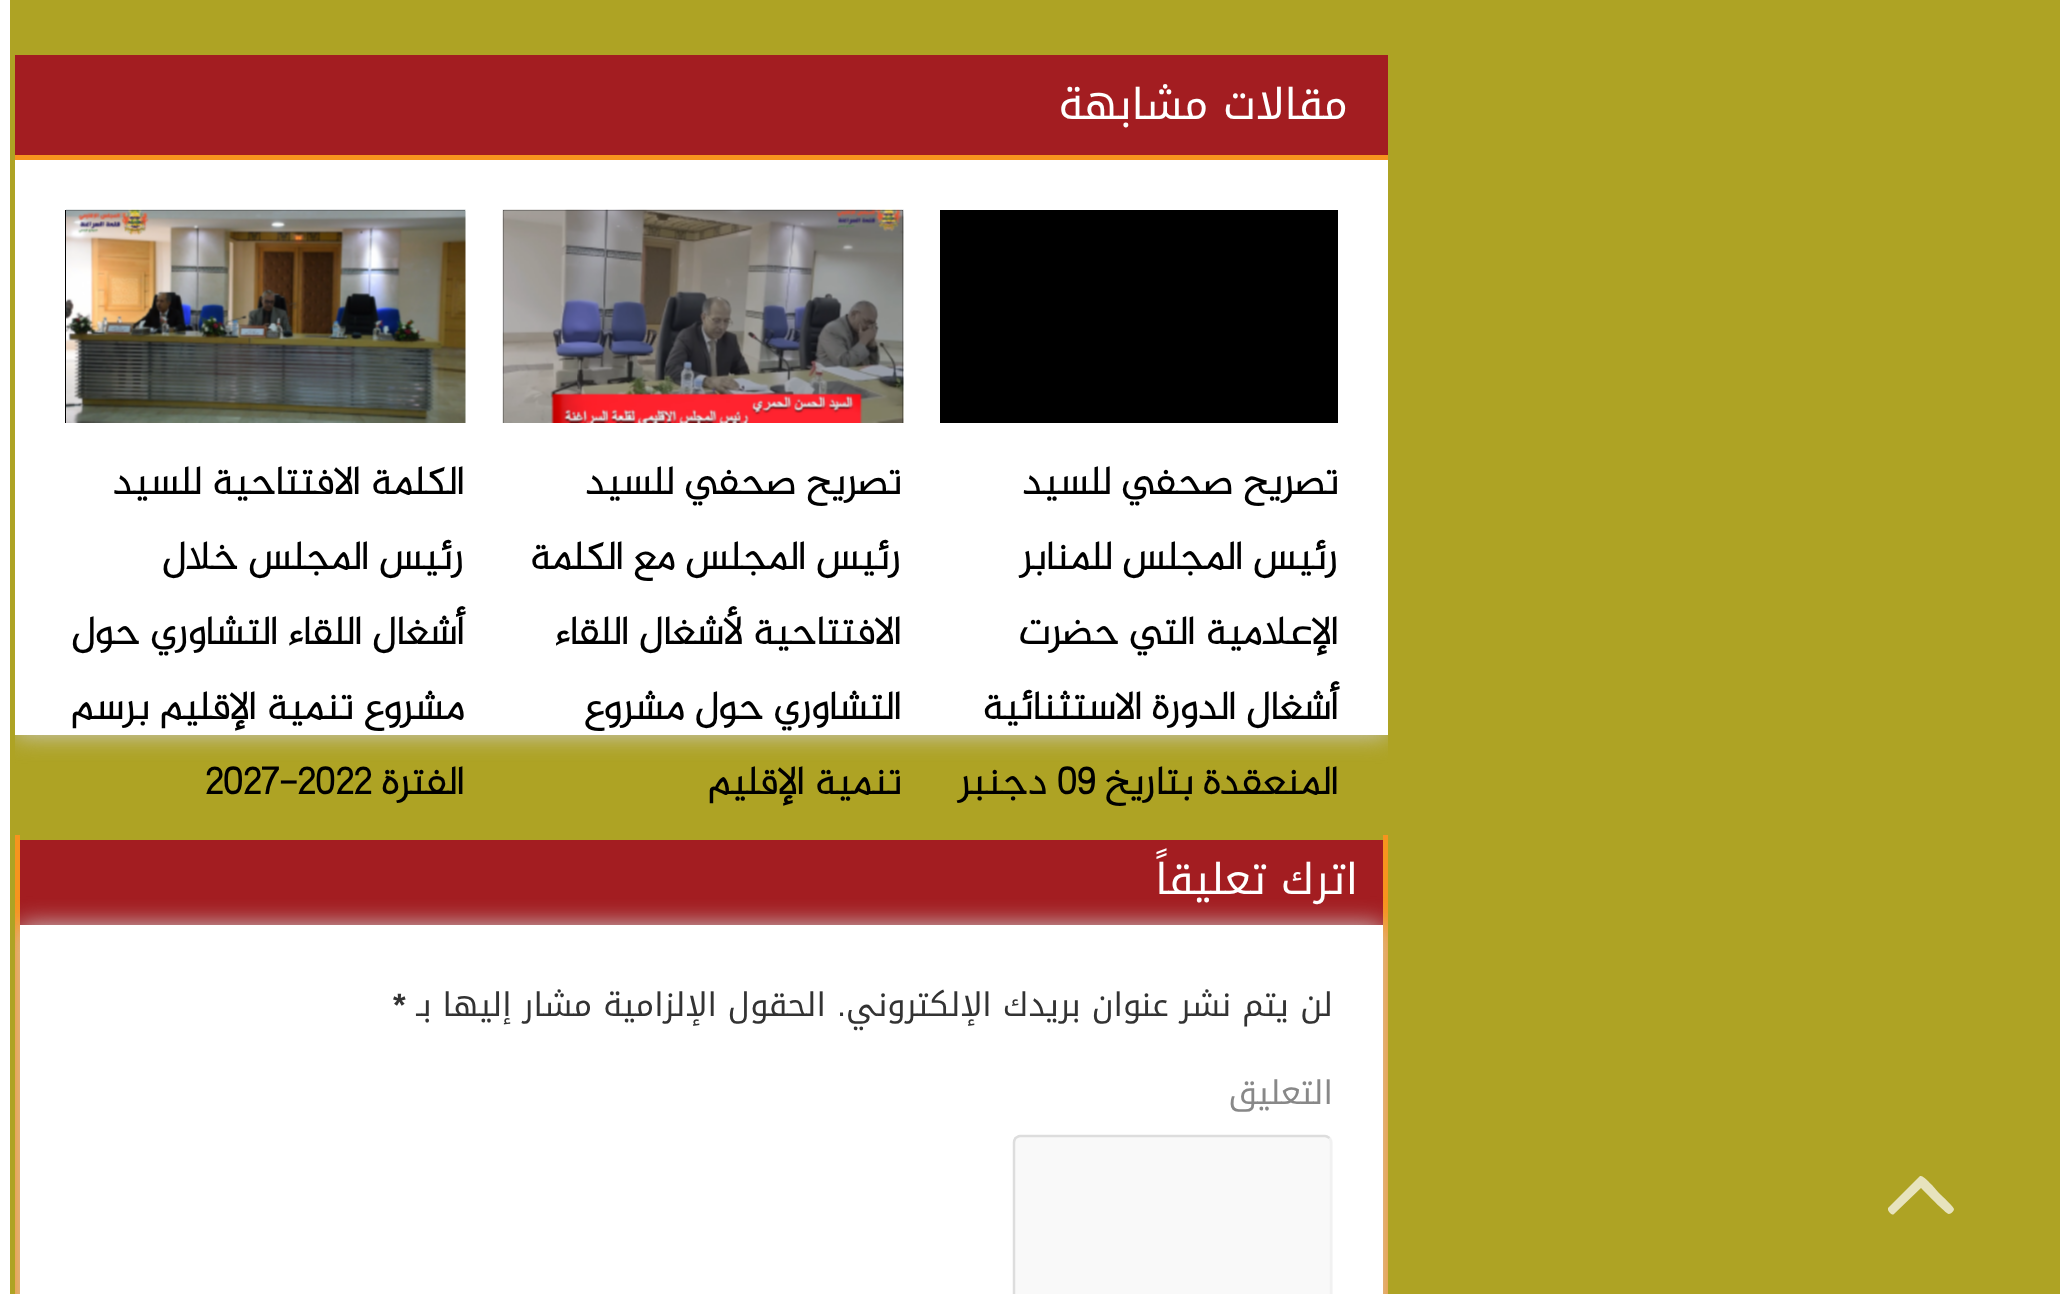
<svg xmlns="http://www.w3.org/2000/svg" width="2068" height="1294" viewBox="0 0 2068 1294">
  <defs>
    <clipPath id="clip1"><rect x="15" y="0" width="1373" height="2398"/></clipPath>
  </defs>
  <rect width="100%" height="100%" fill="rgb(255,255,255)"/>
  <rect x="10" y="0" width="2050" height="1294" fill="rgb(174,163,36)"/>
  <g clip-path="url(#clip1)">
    <rect x="15" y="160" width="1373" height="575" fill="rgb(202,202,202)" filter="blur(12.5px)"/>
  </g>
  <rect x="15" y="55" width="1373" height="100" fill="rgb(163,29,33)"/>
  <rect x="15" y="155" width="1373" height="5" fill="rgb(247,148,30)"/>
  <text x="1348" y="119" font-family="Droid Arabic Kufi" font-size="42.5" direction="rtl" fill="rgb(255,255,255)">مقالات مشابهة</text>
  <rect x="15" y="160" width="1373" height="575" fill="rgb(255,255,255)"/>
  <rect x="940" y="210" width="398" height="213" fill="rgb(0,0,0)"/>
  <g font-family="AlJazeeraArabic" font-size="40" font-weight="bold" direction="rtl" fill="rgb(0,0,0)">
    <text>
      <tspan x="1338" y="494">تصريح صحفي للسيد</tspan>
      <tspan x="1338" y="569">رئيس المجلس للمنابر</tspan>
      <tspan x="1338" y="644">الإعلامية التي حضرت</tspan>
      <tspan x="1338" y="719">أشغال الدورة الاستثنائية</tspan>
      <tspan x="1338" y="794">المنعقدة بتاريخ</tspan>
    </text>
  </g>
  <text x="1057" y="794" font-family="AlJazeeraArabic" font-size="40" font-weight="bold" fill="rgb(0,0,0)">09</text>
  <text x="1046" y="794" font-family="AlJazeeraArabic" font-size="40" font-weight="bold" direction="rtl" fill="rgb(0,0,0)">دجنبر</text>
  <rect x="503" y="210" width="400" height="213" fill="rgb(0,0,0)"/>
  <image x="502" y="209" width="402" height="214" href="pic1.png"/>
  <g font-family="AlJazeeraArabic" font-size="40" font-weight="bold" direction="rtl" fill="rgb(0,0,0)">
    <text>
      <tspan x="901" y="494">تصريح صحفي للسيد</tspan>
      <tspan x="901" y="569">رئيس المجلس مع الكلمة</tspan>
      <tspan x="901" y="644">الافتتاحية لأشغال اللقاء</tspan>
      <tspan x="901" y="719">التشاوري حول مشروع</tspan>
      <tspan x="901" y="794">تنمية الإقليم</tspan>
    </text>
  </g>
  <rect x="65" y="210" width="400" height="213" fill="rgb(0,0,0)"/>
  <image x="66" y="209" width="400" height="214" href="pic2.png"/>
  <g font-family="AlJazeeraArabic" font-size="40" font-weight="bold" direction="rtl" fill="rgb(0,0,0)">
    <text>
      <tspan x="464" y="494">الكلمة الافتتاحية للسيد</tspan>
      <tspan x="464" y="569">رئيس المجلس خلال</tspan>
      <tspan x="464" y="644">أشغال اللقاء التشاوري حول</tspan>
      <tspan x="464" y="719">مشروع تنمية الإقليم برسم</tspan>
      <tspan x="464" y="794">الفترة</tspan>
    </text>
  </g>
  <text x="205" y="794" font-family="AlJazeeraArabic" font-size="40" font-weight="bold" fill="rgb(0,0,0)">2027-2022</text>
  <rect x="1383" y="835" width="5" height="459" fill="rgb(247,148,30)"/>
  <rect x="15" y="835" width="5" height="459" fill="rgb(247,148,30)"/>
  <rect x="20" y="840" width="1363" height="85" fill="rgb(163,29,33)"/>
  <text x="1358" y="894" font-family="Droid Arabic Kufi" font-size="42.5" direction="rtl" fill="rgb(255,255,255)">اترك تعليقاً</text>
  <g clip-path="url(#clip1)">
    <rect x="20" y="925" width="1363" height="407" fill="rgb(202,202,202)" filter="blur(12.5px)"/>
  </g>
  <rect x="20" y="925" width="1363" height="369" fill="rgb(255,255,255)"/>
  <g font-family="Droid Arabic Kufi" font-size="32.5" direction="rtl" fill="rgb(51,51,51)">
    <text x="1333" y="1016">لن يتم نشر عنوان بريدك الإلكتروني</text>
    <text x="826" y="1016">الحقول الإلزامية مشار إليها بـ</text>
  </g>
  <text x="393" y="1016" font-family="Liberation Sans" font-size="32.5" font-weight="bold" fill="rgb(51,51,51)">*</text>
  <text x="846" y="1016" font-family="Liberation Sans" font-size="32.5" direction="rtl" fill="rgb(51,51,51)">.</text>
  <text x="1333" y="1104" font-family="Droid Arabic Kufi" font-size="32.5" direction="rtl" fill="rgb(136,136,136)">التعليق</text>
  <rect x="1013" y="1135" width="320" height="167" rx="8" fill="rgb(249,249,249)"/>
  <path d="M1329.5 1138C1330.5 1139.5 1331 1141 1331 1142.5V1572.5C1331 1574 1330.5 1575.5 1329.5 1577C1328 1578 1326.5 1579 1325 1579H1020C1018.5 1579 1017 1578 1015.5 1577" fill="none" stroke="rgb(241,241,241)" stroke-width="2.5"/>
  <path d="M1015.5 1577C1014.5 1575.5 1014 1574 1014 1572.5V1142.5C1014 1141 1014.5 1139.5 1015.5 1138C1017 1137 1018.5 1136 1020 1136H1325C1326.5 1136 1328 1137 1329.5 1138" fill="none" stroke="rgb(221,221,221)" stroke-width="2.5"/>
  <path d="M1954 1209C1954 1207 1940 1194 1938 1192C1936 1189 1924 1176 1921 1176H1920L1888 1208V1210C1889 1212 1892 1216 1894 1214L1921 1188C1924 1191 1947 1215 1949 1214C1951 1214 1954 1211 1954 1209Z" fill="rgb(231,227,189)"/>
</svg>
